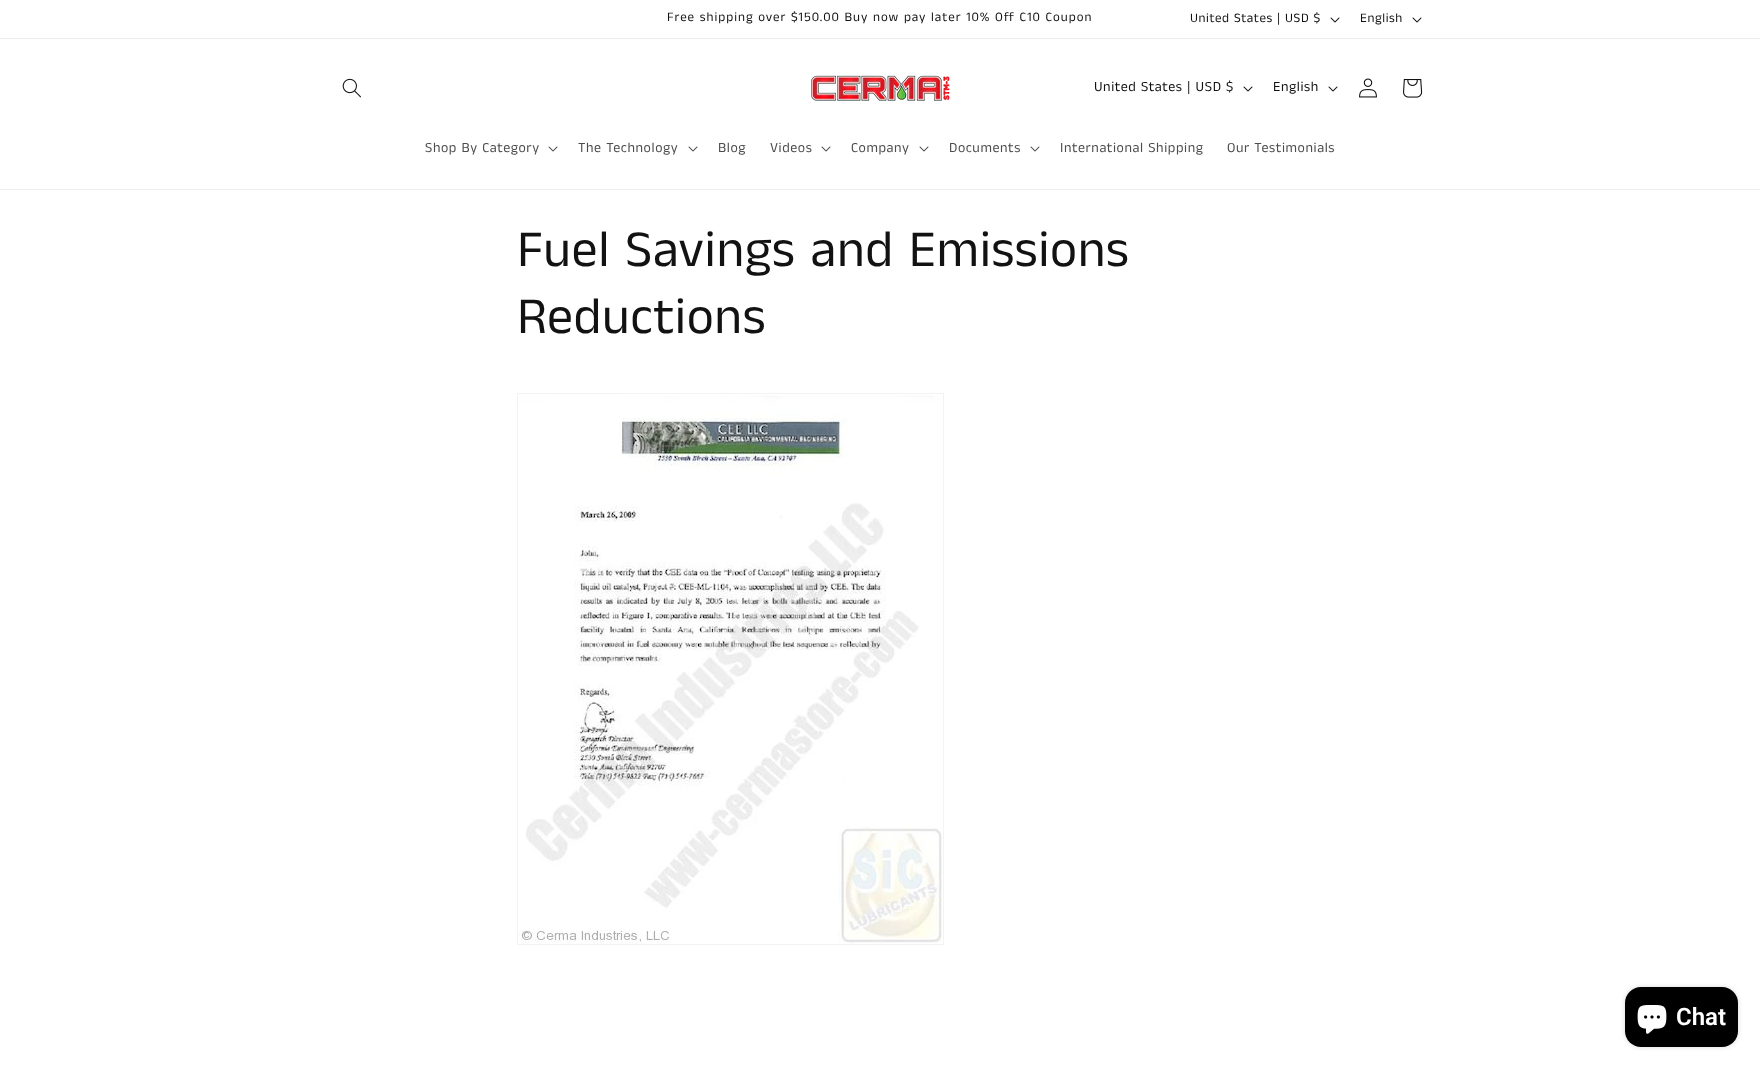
<svg xmlns="http://www.w3.org/2000/svg" width="1760" height="1068" viewBox="0 0 1760 1068">
  <rect width="100%" height="100%" fill="rgb(255,255,255)"/>
  <rect x="0" y="38" width="1760" height="1" fill="rgb(236,236,236)"/>
  <text x="667" y="21" font-family="Anek Tamil" font-size="13" letter-spacing="1" fill="rgb(18,18,18)">Free shipping over $150.00 Buy now pay later 10% Off C10 Coupon</text>
  <text x="1190" y="22" font-family="Anek Tamil" font-size="13" letter-spacing="0.6" fill="rgb(18,18,18)">United States | USD $</text>
  <image x="1330" y="17" width="10" height="6" href="pic1.png"/>
  <text x="1360" y="22" font-family="Anek Tamil" font-size="13" letter-spacing="0.6" fill="rgb(18,18,18)">English</text>
  <image x="1412" y="17" width="10" height="6" href="pic1.png"/>
  <rect x="0" y="189" width="1760" height="1" fill="rgb(236,236,236)"/>
  <image x="342" y="78" width="19" height="20" href="pic2.png"/>
  <image x="811" y="75" width="139" height="26" href="pic3.png"/>
  <text x="1094" y="91" font-family="Anek Tamil" font-size="14" letter-spacing="0.6" fill="rgb(18,18,18)">United States | USD $</text>
  <image x="1243" y="86" width="10" height="6" href="pic1.png"/>
  <text x="1273" y="91" font-family="Anek Tamil" font-size="14" letter-spacing="0.6" fill="rgb(18,18,18)">English</text>
  <image x="1328" y="86" width="10" height="6" href="pic1.png"/>
  <image x="1359" y="78" width="18" height="20" href="pic4.png"/>
  <image x="1403" y="79" width="20" height="19" href="pic5.png"/>
  <text x="425" y="152" font-family="Anek Tamil" font-size="14" letter-spacing="0.6" fill="rgb(77,77,77)">Shop By Category</text>
  <image x="548" y="146" width="10" height="6" href="pic6.png"/>
  <text x="578" y="152" font-family="Anek Tamil" font-size="14" letter-spacing="0.6" fill="rgb(77,77,77)">The Technology</text>
  <image x="688" y="146" width="10" height="6" href="pic6.png"/>
  <g font-family="Anek Tamil" font-size="14" letter-spacing="0.6" fill="rgb(77,77,77)">
    <text x="718" y="152">Blog</text>
    <text x="770" y="152">Videos</text>
  </g>
  <image x="821" y="146" width="10" height="6" href="pic6.png"/>
  <text x="851" y="152" font-family="Anek Tamil" font-size="14" letter-spacing="0.6" fill="rgb(77,77,77)">Company</text>
  <image x="919" y="146" width="10" height="6" href="pic6.png"/>
  <text x="949" y="152" font-family="Anek Tamil" font-size="14" letter-spacing="0.6" fill="rgb(77,77,77)">Documents</text>
  <image x="1030" y="146" width="10" height="6" href="pic6.png"/>
  <g font-family="Anek Tamil" font-size="14" letter-spacing="0.6" fill="rgb(77,77,77)">
    <text x="1060" y="152">International Shipping</text>
    <text x="1227" y="152">Our Testimonials</text>
  </g>
  <g font-family="Anek Tamil" font-size="52" letter-spacing="0.6" fill="rgb(18,18,18)">
    <text>
      <tspan x="517" y="266">Fuel Savings and Emissions</tspan>
      <tspan x="517" y="333">Reductions</tspan>
    </text>
  </g>
  <rect x="517.5" y="393.5" width="426" height="551" fill="none" stroke="rgb(243,243,243)"/>
  <image x="518" y="395" width="424" height="549" href="pic7.png"/>
  <rect x="1625" y="987" width="113" height="60" rx="16" fill="rgba(0,0,0,0.15)" filter="blur(2.5px)"/>
  <rect x="1625" y="987" width="113" height="60" rx="16" fill="rgb(0,0,0)"/>
  <image x="1637" y="1005" width="30" height="29" href="pic8.png"/>
  <text x="1676" y="1025" font-family="Roboto" font-size="24" font-weight="600" fill="rgb(255,255,255)">Chat</text>
</svg>
